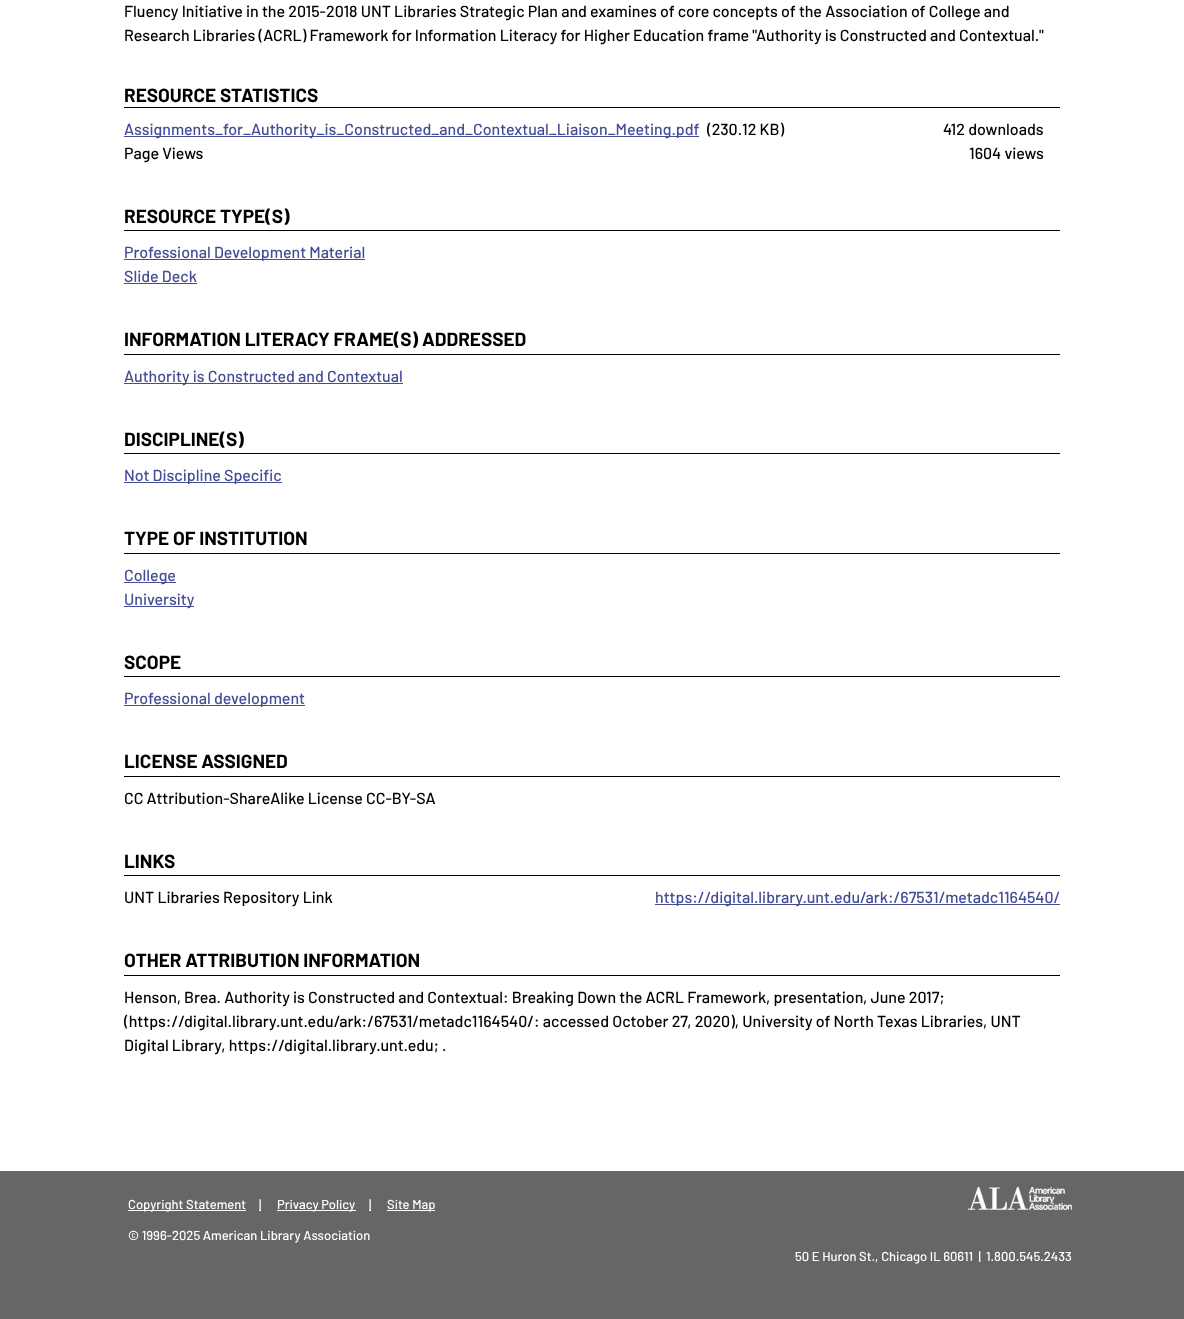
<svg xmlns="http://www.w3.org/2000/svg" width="1184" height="1319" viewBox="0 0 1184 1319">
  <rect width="100%" height="100%" fill="rgb(255,255,255)"/>
  <g font-family="Barlow" font-size="16" font-weight="500" fill="rgb(0,0,0)">
    <text>
      <tspan x="124" y="17">Fluency Initiative in the 2015-2018 UNT Libraries Strategic Plan and examines of core concepts of the Association of College and</tspan>
      <tspan x="124" y="41">Research Libraries (ACRL) Framework for Information Literacy for Higher Education frame "Authority is Constructed and Contextual."</tspan>
    </text>
  </g>
  <rect x="124" y="107" width="936" height="1" fill="rgb(0,0,0)"/>
  <text x="124" y="102" font-family="Barlow" font-size="19" font-weight="bold" fill="rgb(0,0,0)">RESOURCE STATISTICS</text>
  <rect x="124" y="136" width="575" height="1" fill="rgb(67,76,149)"/>
  <text x="124" y="135" font-family="Barlow" font-size="16" font-weight="500" fill="rgb(67,76,149)">Assignments_for_Authority_is_Constructed_and_Contextual_Liaison_Meeting.pdf</text>
  <g font-family="Barlow" font-size="16" font-weight="500" fill="rgb(0,0,0)">
    <text x="707" y="135">(230.12 KB)</text>
    <text x="943" y="135">412 downloads</text>
    <text x="124" y="159">Page Views</text>
    <text x="969" y="159">1604 views</text>
  </g>
  <rect x="124" y="230" width="936" height="1" fill="rgb(0,0,0)"/>
  <text x="124" y="223" font-family="Barlow" font-size="19" font-weight="bold" fill="rgb(0,0,0)">RESOURCE TYPE(S)</text>
  <rect x="124" y="259" width="241" height="1" fill="rgb(67,76,149)"/>
  <g font-family="Barlow" font-size="16" font-weight="500" fill="rgb(67,76,149)">
    <text>
      <tspan x="124" y="258">Professional Development Material</tspan>
      <tspan x="124" y="282">Slide Deck</tspan>
    </text>
  </g>
  <rect x="124" y="283" width="73" height="1" fill="rgb(67,76,149)"/>
  <rect x="124" y="354" width="936" height="1" fill="rgb(0,0,0)"/>
  <text x="124" y="346" font-family="Barlow" font-size="19" font-weight="bold" fill="rgb(0,0,0)">INFORMATION LITERACY FRAME(S) ADDRESSED</text>
  <rect x="124" y="383" width="279" height="1" fill="rgb(67,76,149)"/>
  <text x="124" y="382" font-family="Barlow" font-size="16" font-weight="500" fill="rgb(67,76,149)">Authority is Constructed and Contextual</text>
  <rect x="124" y="453" width="936" height="1" fill="rgb(0,0,0)"/>
  <text x="124" y="446" font-family="Barlow" font-size="19" font-weight="bold" fill="rgb(0,0,0)">DISCIPLINE(S)</text>
  <rect x="124" y="482" width="158" height="1" fill="rgb(67,76,149)"/>
  <text x="124" y="481" font-family="Barlow" font-size="16" font-weight="500" fill="rgb(67,76,149)">Not Discipline Specific</text>
  <rect x="124" y="553" width="936" height="1" fill="rgb(0,0,0)"/>
  <text x="124" y="545" font-family="Barlow" font-size="19" font-weight="bold" fill="rgb(0,0,0)">TYPE OF INSTITUTION</text>
  <rect x="124" y="582" width="52" height="1" fill="rgb(67,76,149)"/>
  <text x="124" y="581" font-family="Barlow" font-size="16" font-weight="500" fill="rgb(67,76,149)">College</text>
  <rect x="124" y="606" width="70" height="1" fill="rgb(67,76,149)"/>
  <text x="124" y="605" font-family="Barlow" font-size="16" font-weight="500" fill="rgb(67,76,149)">University</text>
  <rect x="124" y="676" width="936" height="1" fill="rgb(0,0,0)"/>
  <text x="124" y="669" font-family="Barlow" font-size="19" font-weight="bold" fill="rgb(0,0,0)">SCOPE</text>
  <rect x="124" y="705" width="181" height="1" fill="rgb(67,76,149)"/>
  <text x="124" y="704" font-family="Barlow" font-size="16" font-weight="500" fill="rgb(67,76,149)">Professional development</text>
  <rect x="124" y="776" width="936" height="1" fill="rgb(0,0,0)"/>
  <text x="124" y="768" font-family="Barlow" font-size="19" font-weight="bold" fill="rgb(0,0,0)">LICENSE ASSIGNED</text>
  <text x="124" y="804" font-family="Barlow" font-size="16" font-weight="500" fill="rgb(0,0,0)">CC Attribution-ShareAlike License CC-BY-SA</text>
  <rect x="124" y="875" width="936" height="1" fill="rgb(0,0,0)"/>
  <text x="124" y="868" font-family="Barlow" font-size="19" font-weight="bold" fill="rgb(0,0,0)">LINKS</text>
  <text x="124" y="903" font-family="Barlow" font-size="16" font-weight="500" fill="rgb(0,0,0)">UNT Libraries Repository Link</text>
  <rect x="655" y="904" width="405" height="1" fill="rgb(67,76,149)"/>
  <text x="655" y="903" font-family="Barlow" font-size="16" font-weight="500" fill="rgb(67,76,149)">https://digital.library.unt.edu/ark:/67531/metadc1164540/</text>
  <rect x="124" y="975" width="936" height="1" fill="rgb(0,0,0)"/>
  <text x="124" y="967" font-family="Barlow" font-size="19" font-weight="bold" fill="rgb(0,0,0)">OTHER ATTRIBUTION INFORMATION</text>
  <g font-family="Barlow" font-size="16" font-weight="500" fill="rgb(0,0,0)">
    <text>
      <tspan x="124" y="1003">Henson, Brea. Authority is Constructed and Contextual: Breaking Down the ACRL Framework, presentation, June 2017;</tspan>
      <tspan x="124" y="1027">(https://digital.library.unt.edu/ark:/67531/metadc1164540/: accessed October 27, 2020), University of North Texas Libraries, UNT</tspan>
      <tspan x="124" y="1051">Digital Library, https://digital.library.unt.edu; .</tspan>
    </text>
  </g>
  <rect x="0" y="1171" width="1184" height="148" fill="rgb(102,102,102)"/>
  <rect x="128" y="1210" width="118" height="1" fill="rgb(255,255,255)"/>
  <text x="128" y="1209" font-family="Barlow" font-size="13" font-weight="500" fill="rgb(255,255,255)">Copyright Statement</text>
  <rect x="259" y="1210" width="2" height="1" fill="rgb(255,255,255)"/>
  <text x="259" y="1209" font-family="Barlow" font-size="13" font-weight="500" fill="rgb(255,255,255)">|</text>
  <rect x="277" y="1210" width="79" height="1" fill="rgb(255,255,255)"/>
  <text x="277" y="1209" font-family="Barlow" font-size="13" font-weight="500" fill="rgb(255,255,255)">Privacy Policy</text>
  <rect x="369" y="1210" width="2" height="1" fill="rgb(255,255,255)"/>
  <text x="369" y="1209" font-family="Barlow" font-size="13" font-weight="500" fill="rgb(255,255,255)">|</text>
  <rect x="387" y="1210" width="48" height="1" fill="rgb(255,255,255)"/>
  <g font-family="Barlow" font-size="13" font-weight="500" fill="rgb(255,255,255)">
    <text x="387" y="1209">Site Map</text>
    <text x="128" y="1240">© 1996-2025 American Library Association</text>
  </g>
  <image x="968" y="1187" width="104" height="23" href="pic1.png"/>
  <text x="795" y="1261" font-family="Barlow" font-size="13" font-weight="500" fill="rgb(255,255,255)" xml:space="preserve">50 E Huron St., Chicago IL 60611  |  1.800.545.2433</text>
</svg>
